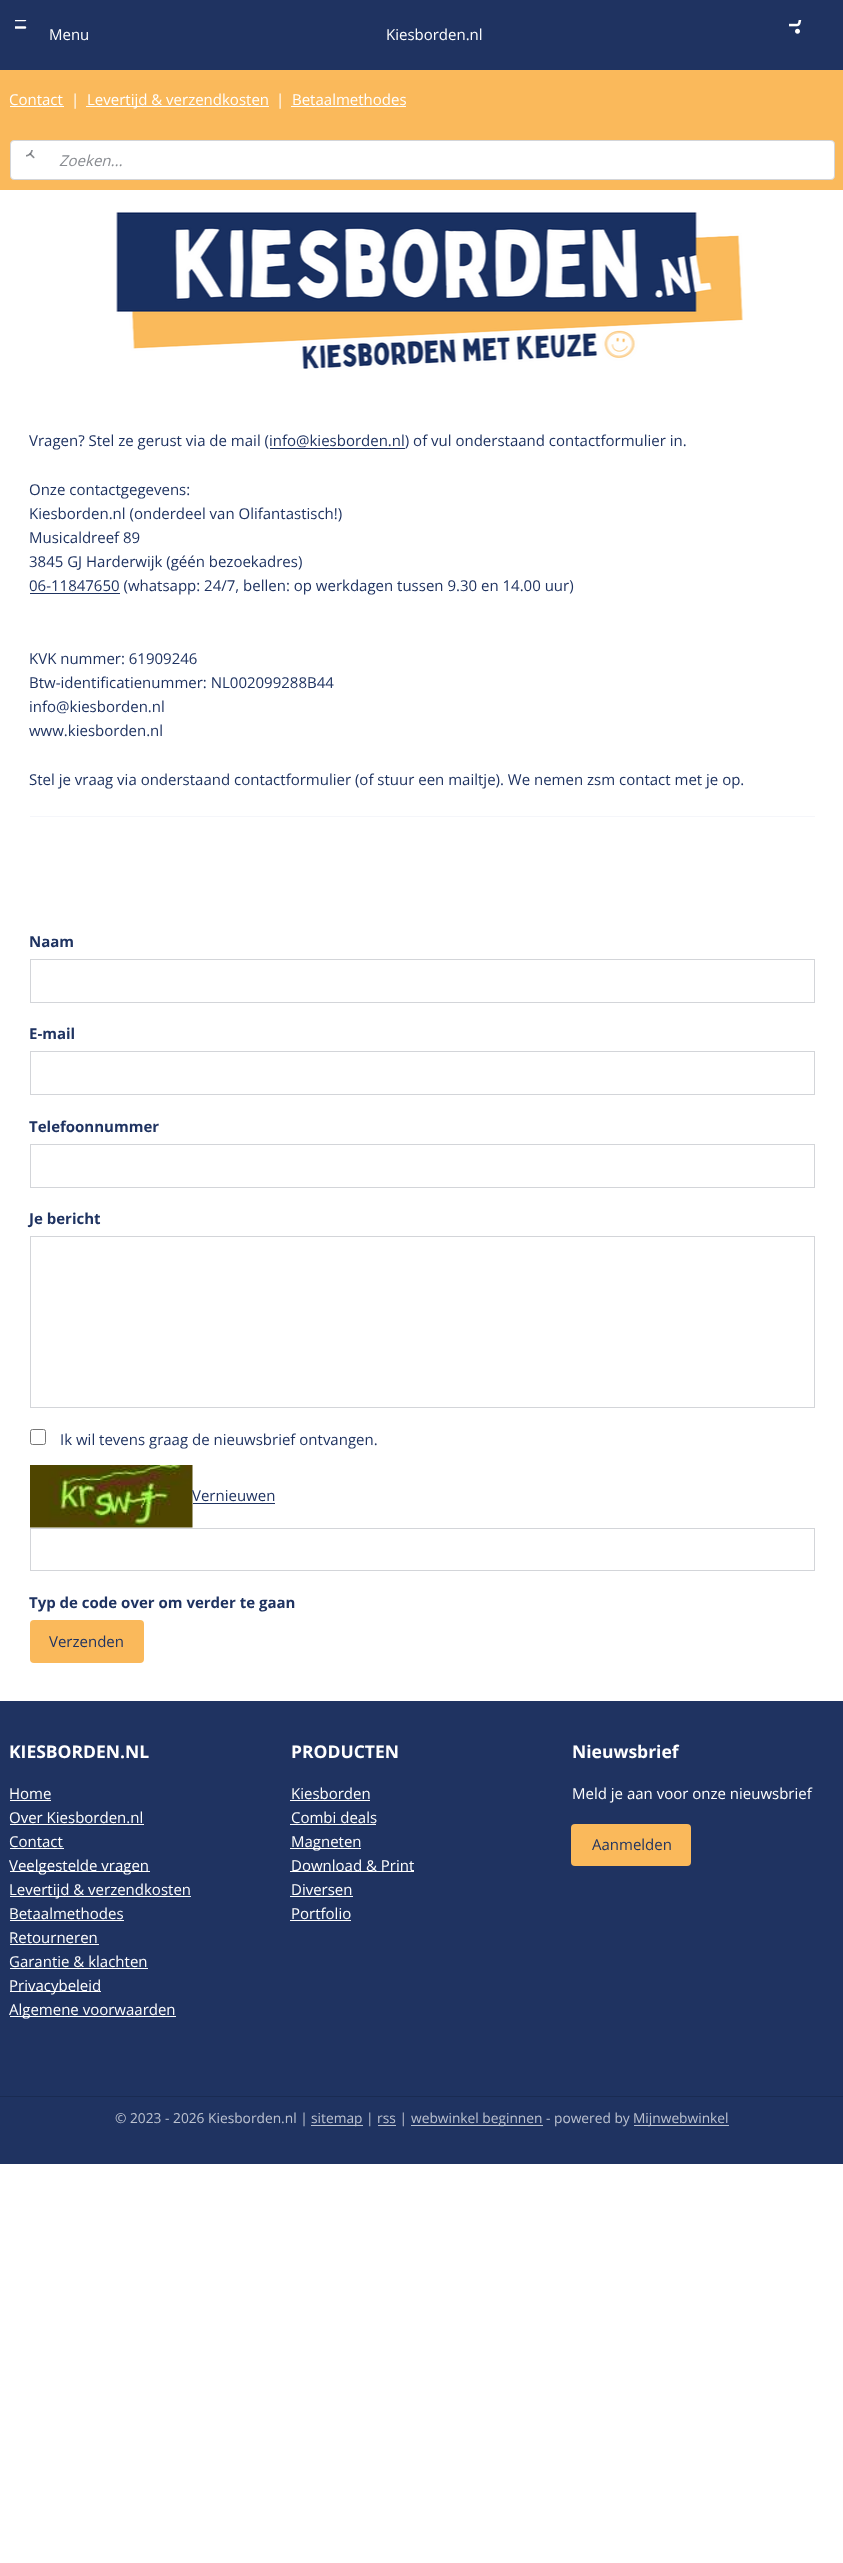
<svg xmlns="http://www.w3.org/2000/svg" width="843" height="2563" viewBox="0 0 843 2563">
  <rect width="100%" height="100%" fill="rgb(255,255,255)"/>
  <rect x="0" y="0" width="843" height="70" fill="rgb(31,51,97)"/>
  <image x="15" y="20" width="12" height="9" href="pic1.png"/>
  <g font-family="Open Sans" font-size="15" fill="rgb(255,255,255)">
    <text x="49" y="40">Menu</text>
    <text x="386" y="40">Kiesborden.nl</text>
  </g>
  <image x="789" y="20" width="13" height="14" href="pic2.png"/>
  <rect x="0" y="70" width="843" height="120" fill="rgb(250,185,91)"/>
  <text x="9" y="105" font-family="Open Sans" font-size="15" fill="rgb(255,255,255)">Contact</text>
  <rect x="10" y="106" width="54" height="1" fill="rgb(255,255,255)"/>
  <text x="71" y="105" font-family="Open Sans" font-size="15" fill="rgb(255,255,255)">|</text>
  <rect x="86" y="106" width="183" height="1" fill="rgb(255,255,255)"/>
  <g font-family="Open Sans" font-size="15" fill="rgb(255,255,255)">
    <text x="87" y="105">Levertijd &amp; verzendkosten</text>
    <text x="276" y="105">|</text>
    <text x="292" y="105">Betaalmethodes</text>
  </g>
  <rect x="291" y="106" width="115" height="1" fill="rgb(255,255,255)"/>
  <rect x="10.5" y="140.5" width="824" height="39" rx="3.5" fill="rgb(255,255,255)" stroke="rgb(211,213,217)"/>
  <image x="26" y="150" width="9" height="9" href="pic3.png"/>
  <text x="59" y="166" font-family="Open Sans" font-size="15" font-style="italic" fill="rgb(137,140,145)">Zoeken...</text>
  <image x="116" y="212" width="627" height="158" href="pic4.png"/>
  <text x="29" y="446" font-family="Open Sans" font-size="15" fill="rgb(31,51,97)">Vragen? Stel ze gerust via de mail (info@kiesborden.nl) of vul onderstaand contactformulier in.</text>
  <rect x="270" y="448" width="135" height="1" fill="rgb(31,51,97)"/>
  <g font-family="Open Sans" font-size="15" fill="rgb(31,51,97)">
    <text>
      <tspan x="29" y="495">Onze contactgegevens:</tspan>
      <tspan x="29" y="519">Kiesborden.nl (onderdeel van Olifantastisch!)</tspan>
      <tspan x="29" y="543">Musicaldreef 89</tspan>
      <tspan x="29" y="567">3845 GJ Harderwijk (géén bezoekadres)</tspan>
    </text>
  </g>
  <rect x="30" y="593" width="90" height="1" fill="rgb(31,51,97)"/>
  <g font-family="Open Sans" font-size="15" fill="rgb(31,51,97)">
    <text x="29" y="591">06-11847650 (whatsapp: 24/7, bellen: op werkdagen tussen 9.30 en 14.00 uur)</text>
    <text>
      <tspan x="29" y="664">KVK nummer: 61909246</tspan>
      <tspan x="29" y="688">Btw-identificatienummer: NL002099288B44</tspan>
      <tspan x="29" y="712">info@kiesborden.nl</tspan>
      <tspan x="29" y="736">www.kiesborden.nl</tspan>
    </text>
    <text x="29" y="785">Stel je vraag via onderstaand contactformulier (of stuur een mailtje). We nemen zsm contact met je op.</text>
  </g>
  <rect x="30" y="816" width="785" height="1" fill="rgb(245,246,250)"/>
  <text x="29" y="947" font-family="Open Sans" font-size="15" font-weight="bold" fill="rgb(31,51,97)">Naam</text>
  <rect x="30.5" y="959.5" width="784" height="43" fill="none" stroke="rgb(211,213,217)"/>
  <text x="29" y="1039" font-family="Open Sans" font-size="15" font-weight="bold" fill="rgb(31,51,97)">E-mail</text>
  <rect x="30.5" y="1051.5" width="784" height="43" fill="none" stroke="rgb(211,213,217)"/>
  <text x="29" y="1132" font-family="Open Sans" font-size="15" font-weight="bold" fill="rgb(31,51,97)">Telefoonnummer</text>
  <rect x="30.5" y="1144.5" width="784" height="43" fill="none" stroke="rgb(211,213,217)"/>
  <text x="29" y="1224" font-family="Open Sans" font-size="15" font-weight="bold" fill="rgb(31,51,97)">Je bericht</text>
  <rect x="30.5" y="1236.5" width="784" height="171" fill="none" stroke="rgb(211,213,217)"/>
  <rect x="30.5" y="1429.5" width="15" height="15" rx="2" fill="none" stroke="rgb(118,118,118)"/>
  <text x="60" y="1445" font-family="Open Sans" font-size="15" fill="rgb(31,51,97)">Ik wil tevens graag de nieuwsbrief ontvangen.</text>
  <image x="30" y="1465" width="163" height="63" href="pic5.png"/>
  <text x="192" y="1501" font-family="Open Sans" font-size="15" fill="rgb(31,51,97)">Vernieuwen</text>
  <rect x="193" y="1503" width="82" height="1" fill="rgb(31,51,97)"/>
  <rect x="30.5" y="1528.5" width="784" height="42" fill="none" stroke="rgb(211,213,217)"/>
  <text x="29" y="1608" font-family="Open Sans" font-size="15" font-weight="bold" fill="rgb(31,51,97)">Typ de code over om verder te gaan</text>
  <rect x="30" y="1620" width="114" height="43" rx="4" fill="rgb(250,185,91)"/>
  <text x="49" y="1647" font-family="Open Sans" font-size="15" fill="rgb(31,51,97)">Verzenden</text>
  <rect x="0" y="1701" width="843" height="395" fill="rgb(31,51,97)"/>
  <text x="9" y="1758" font-family="Open Sans" font-size="17.5" font-weight="bold" fill="rgb(255,255,255)">KIESBORDEN.NL</text>
  <text x="9" y="1799" font-family="Open Sans" font-size="15" fill="rgb(255,255,255)">Home</text>
  <rect x="10" y="1800" width="41" height="1" fill="rgb(255,255,255)"/>
  <text x="9" y="1823" font-family="Open Sans" font-size="15" fill="rgb(255,255,255)">Over Kiesborden.nl</text>
  <rect x="10" y="1824" width="134" height="1" fill="rgb(255,255,255)"/>
  <text x="9" y="1847" font-family="Open Sans" font-size="15" fill="rgb(255,255,255)">Contact</text>
  <rect x="10" y="1848" width="54" height="1" fill="rgb(255,255,255)"/>
  <rect x="10" y="1871" width="140" height="1" fill="rgb(255,255,255)"/>
  <text x="9" y="1871" font-family="Open Sans" font-size="15" fill="rgb(255,255,255)">Veelgestelde vragen</text>
  <rect x="10" y="1896" width="181" height="1" fill="rgb(255,255,255)"/>
  <g font-family="Open Sans" font-size="15" fill="rgb(255,255,255)">
    <text>
      <tspan x="9" y="1895">Levertijd &amp; verzendkosten</tspan>
      <tspan x="9" y="1919">Betaalmethodes</tspan>
    </text>
  </g>
  <rect x="10" y="1920" width="114" height="1" fill="rgb(255,255,255)"/>
  <text x="9" y="1943" font-family="Open Sans" font-size="15" fill="rgb(255,255,255)">Retourneren</text>
  <rect x="10" y="1944" width="89" height="1" fill="rgb(255,255,255)"/>
  <text x="9" y="1967" font-family="Open Sans" font-size="15" fill="rgb(255,255,255)">Garantie &amp; klachten</text>
  <rect x="10" y="1968" width="138" height="1" fill="rgb(255,255,255)"/>
  <rect x="10" y="1991" width="91" height="1" fill="rgb(255,255,255)"/>
  <text x="9" y="1991" font-family="Open Sans" font-size="15" fill="rgb(255,255,255)">Privacybeleid</text>
  <rect x="10" y="2016" width="166" height="1" fill="rgb(255,255,255)"/>
  <text x="9" y="2015" font-family="Open Sans" font-size="15" fill="rgb(255,255,255)">Algemene voorwaarden</text>
  <text x="291" y="1758" font-family="Open Sans" font-size="17.5" font-weight="bold" fill="rgb(255,255,255)">PRODUCTEN</text>
  <text x="291" y="1799" font-family="Open Sans" font-size="15" fill="rgb(255,255,255)">Kiesborden</text>
  <rect x="290" y="1800" width="80" height="1" fill="rgb(255,255,255)"/>
  <text x="291" y="1823" font-family="Open Sans" font-size="15" fill="rgb(255,255,255)">Combi deals</text>
  <rect x="290" y="1824" width="86" height="1" fill="rgb(255,255,255)"/>
  <rect x="290" y="1848" width="71" height="1" fill="rgb(255,255,255)"/>
  <text x="291" y="1847" font-family="Open Sans" font-size="15" fill="rgb(255,255,255)">Magneten</text>
  <rect x="290" y="1871" width="124" height="1" fill="rgb(255,255,255)"/>
  <g font-family="Open Sans" font-size="15" fill="rgb(255,255,255)">
    <text>
      <tspan x="291" y="1871">Download &amp; Print</tspan>
      <tspan x="291" y="1895">Diversen</tspan>
    </text>
  </g>
  <rect x="290" y="1896" width="63" height="1" fill="rgb(255,255,255)"/>
  <text x="291" y="1919" font-family="Open Sans" font-size="15" fill="rgb(255,255,255)">Portfolio</text>
  <rect x="290" y="1920" width="61" height="1" fill="rgb(255,255,255)"/>
  <text x="572" y="1758" font-family="Open Sans" font-size="17.5" font-weight="bold" fill="rgb(255,255,255)">Nieuwsbrief</text>
  <text x="572" y="1799" font-family="Open Sans" font-size="15" fill="rgb(255,255,255)">Meld je aan voor onze nieuwsbrief</text>
  <rect x="571" y="1824" width="120" height="42" rx="4" fill="rgb(250,185,91)"/>
  <text x="592" y="1850" font-family="Open Sans" font-size="15" fill="rgb(31,51,97)">Aanmelden</text>
  <rect x="0" y="2097" width="843" height="67" fill="rgb(31,51,97)"/>
  <rect x="0" y="2096" width="843" height="1" fill="rgb(26,43,82)"/>
  <text x="115" y="2123" font-family="Open Sans" font-size="13.75" fill="rgb(188,194,208)">© 2023 - 2026 Kiesborden.nl |</text>
  <rect x="311" y="2125" width="52" height="1" fill="rgb(188,194,208)"/>
  <text x="311" y="2123" font-family="Open Sans" font-size="13.75" fill="rgb(188,194,208)">sitemap | rss |</text>
  <rect x="411" y="2125" width="132" height="1" fill="rgb(188,194,208)"/>
  <text x="411" y="2123" font-family="Open Sans" font-size="13.75" fill="rgb(188,194,208)">webwinkel beginnen - powered by</text>
  <rect x="634" y="2125" width="95" height="1" fill="rgb(188,194,208)"/>
  <text x="633" y="2123" font-family="Open Sans" font-size="13.75" fill="rgb(188,194,208)">Mijnwebwinkel</text>
  <rect x="378" y="2125" width="18" height="1" fill="rgb(188,194,208)"/>
</svg>
